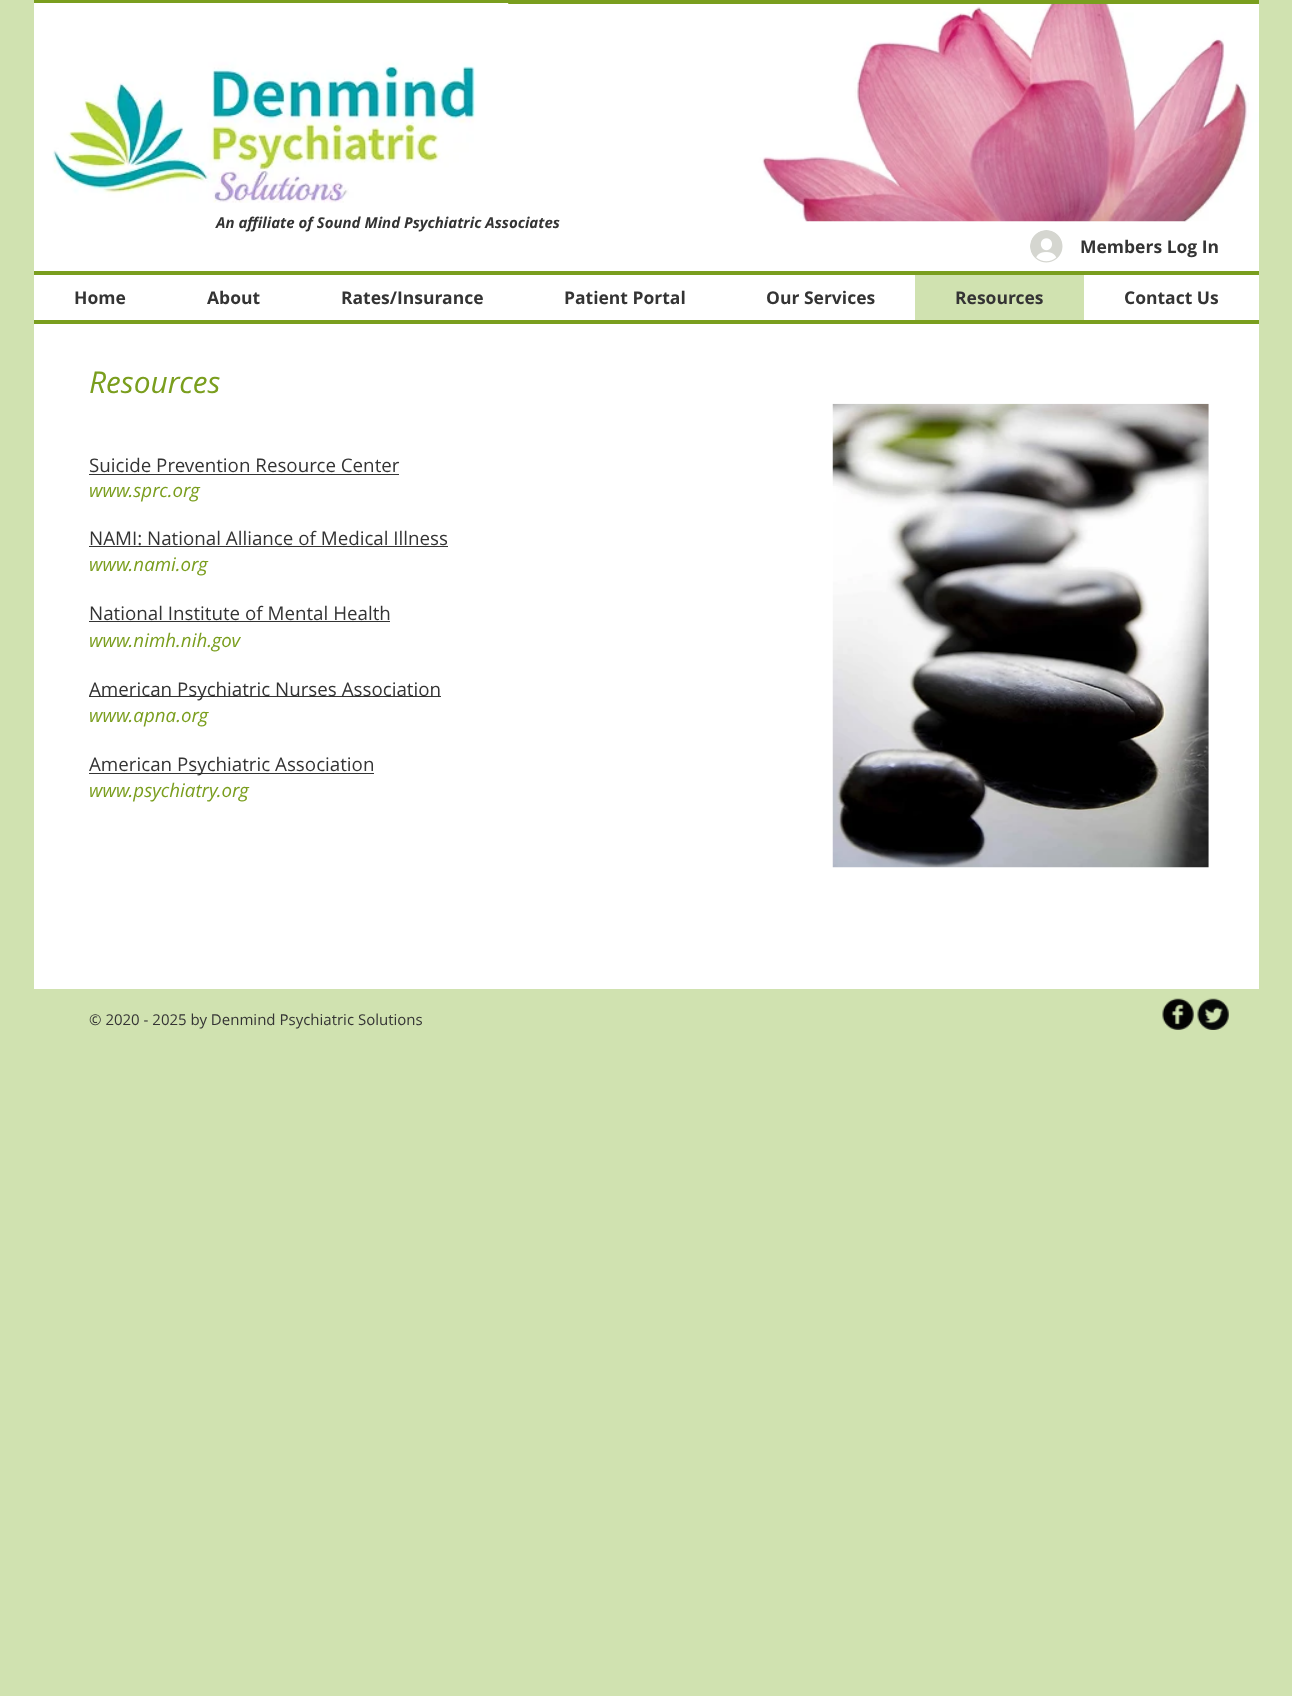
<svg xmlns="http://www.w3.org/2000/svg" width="1292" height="1696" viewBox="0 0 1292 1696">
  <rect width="100%" height="100%" fill="rgb(208,226,176)"/>
  <rect x="34" y="4" width="1225" height="316" fill="rgb(255,255,255)"/>
  <rect x="34" y="0" width="1225" height="4" fill="rgb(122,158,30)"/>
  <image x="34" y="3" width="475" height="200" href="pic1.png"/>
  <image x="694" y="4" width="565" height="218" href="pic2.png"/>
  <text x="216" y="228" font-family="Open Sans" font-size="15" font-weight="bold" font-style="italic" fill="rgb(52,52,52)">An affiliate of Sound Mind Psychiatric Associates</text>
  <image x="1030" y="230" width="33" height="33" href="pic3.png"/>
  <text x="1080" y="253" font-family="Open Sans" font-size="17.5" font-weight="bold" fill="rgb(52,52,52)">Members Log In</text>
  <rect x="34" y="271" width="1225" height="4" fill="rgb(122,158,30)"/>
  <rect x="34" y="320" width="1225" height="4" fill="rgb(122,158,30)"/>
  <g font-family="Open Sans" font-size="17.5" font-weight="bold" fill="rgb(52,52,52)">
    <text x="74" y="304">Home</text>
    <text x="207" y="304">About</text>
    <text x="341" y="304">Rates/Insurance</text>
    <text x="564" y="304">Patient Portal</text>
    <text x="766" y="304">Our Services</text>
  </g>
  <rect x="915" y="275" width="169" height="45" fill="rgb(208,226,176)"/>
  <g font-family="Open Sans" font-size="17.5" font-weight="bold" fill="rgb(52,52,52)">
    <text x="955" y="304">Resources</text>
    <text x="1124" y="304">Contact Us</text>
  </g>
  <rect x="34" y="324" width="1225" height="665" fill="rgb(255,255,255)"/>
  <text x="89" y="393" font-family="Open Sans" font-size="30" font-style="italic" fill="rgb(122,158,30)">Resources</text>
  <text x="89" y="472" font-family="Open Sans" font-size="18.75" fill="rgb(52,52,52)">Suicide Prevention Resource Center</text>
  <rect x="89" y="474" width="310" height="1" fill="rgb(52,52,52)"/>
  <text x="89" y="497" font-family="Open Sans" font-size="18.75" font-style="italic" fill="rgb(122,158,30)">www.sprc.org</text>
  <text x="89" y="545" font-family="Open Sans" font-size="18.75" fill="rgb(52,52,52)">NAMI: National Alliance of Medical Illness</text>
  <rect x="89" y="546" width="359" height="1" fill="rgb(52,52,52)"/>
  <text x="89" y="571" font-family="Open Sans" font-size="18.75" font-style="italic" fill="rgb(122,158,30)">www.nami.org</text>
  <text x="89" y="620" font-family="Open Sans" font-size="18.75" fill="rgb(52,52,52)">National Institute of Mental Health</text>
  <rect x="89" y="621" width="301" height="1" fill="rgb(52,52,52)"/>
  <text x="89" y="647" font-family="Open Sans" font-size="18.75" font-style="italic" fill="rgb(122,158,30)">www.nimh.nih.gov</text>
  <rect x="89" y="696" width="352" height="1" fill="rgb(52,52,52)"/>
  <text x="89" y="696" font-family="Open Sans" font-size="18.75" fill="rgb(52,52,52)">American Psychiatric Nurses Association</text>
  <text x="89" y="722" font-family="Open Sans" font-size="18.75" font-style="italic" fill="rgb(122,158,30)">www.apna.org</text>
  <rect x="89" y="773" width="285" height="1" fill="rgb(52,52,52)"/>
  <text x="89" y="771" font-family="Open Sans" font-size="18.75" fill="rgb(52,52,52)">American Psychiatric Association</text>
  <text x="89" y="797" font-family="Open Sans" font-size="18.75" font-style="italic" fill="rgb(122,158,30)">www.psychiatry.org</text>
  <image x="832" y="403" width="377" height="465" href="pic4.png"/>
  <text x="89" y="1025" font-family="Open Sans" font-size="15" fill="rgb(52,52,52)">© 2020 - 2025 by Denmind Psychiatric Solutions</text>
  <image x="1162" y="998" width="32" height="32" href="pic5.png"/>
  <image x="1197" y="998" width="32" height="32" href="pic6.png"/>
</svg>
